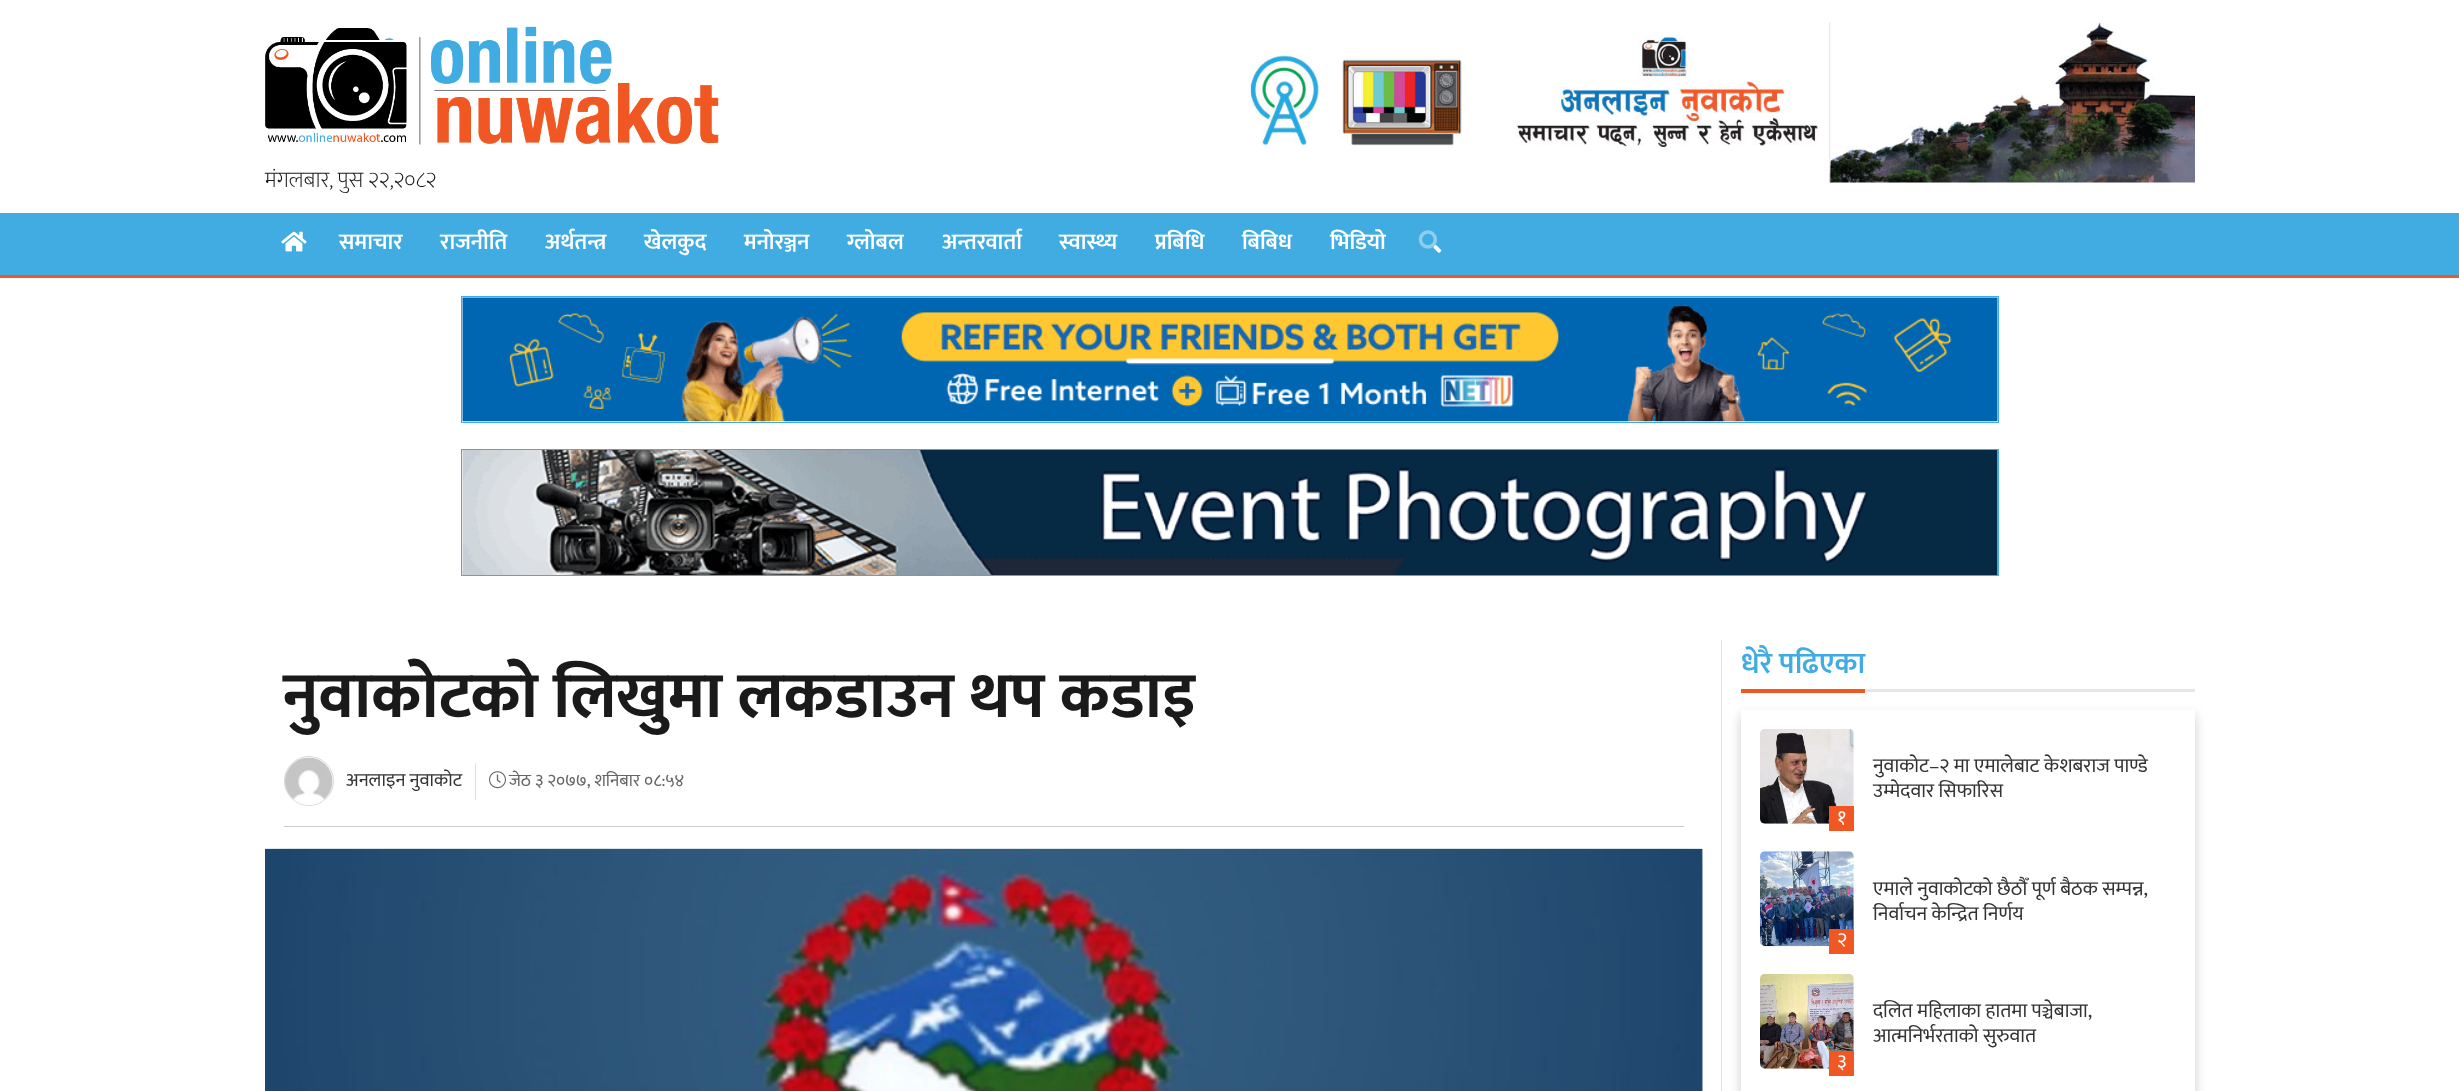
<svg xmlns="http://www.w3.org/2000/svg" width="2459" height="1091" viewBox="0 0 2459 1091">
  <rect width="100%" height="100%" fill="rgb(255,255,255)"/>
  <image x="265" y="26" width="454" height="119" href="pic1.png"/>
  <text x="265" y="187" font-family="Mukta" font-size="22.5" font-weight="200" fill="rgb(26,26,26)">मंगलबार, पुस २२,२०८२</text>
  <image x="1249" y="22" width="946" height="161" href="pic2.png"/>
  <rect x="0" y="213" width="2459" height="62" fill="rgb(65,172,225)"/>
  <rect x="0" y="275" width="2459" height="3" fill="rgb(241,87,34)"/>
  <image x="281" y="231" width="26" height="21" href="pic3.png"/>
  <g font-family="Mukta" font-size="22.5" font-weight="600" fill="rgb(255,255,255)">
    <text x="339" y="249">समाचार</text>
    <text x="440" y="249">राजनीति</text>
    <text x="545" y="249">अर्थतन्त्र</text>
    <text x="644" y="249">खेलकुद</text>
    <text x="744" y="249">मनोरञ्जन</text>
    <text x="847" y="249">ग्लोबल</text>
    <text x="942" y="249">अन्तरवार्ता</text>
    <text x="1059" y="249">स्वास्थ्य</text>
    <text x="1155" y="249">प्रबिधि</text>
    <text x="1242" y="249">बिबिध</text>
    <text x="1330" y="249">भिडियो</text>
  </g>
  <image x="1433" y="245" width="9" height="8" href="pic5.png"/>
  <image x="1418" y="230" width="19" height="19" href="pic4.png"/>
  <rect x="461.5" y="296.5" width="1537" height="126" fill="none" stroke="rgb(65,172,225)"/>
  <image x="462" y="297" width="1536" height="125" href="pic6.png"/>
  <rect x="461.5" y="449.5" width="1537" height="126" fill="none" stroke="rgb(65,172,225)"/>
  <image x="462" y="450" width="1536" height="125" href="pic7.png"/>
  <rect x="1721" y="640" width="1" height="451" fill="rgb(222,226,230)"/>
  <text x="283" y="717" font-family="Mukta" font-size="65" font-weight="bold" fill="rgb(26,26,26)">नुवाकोटको लिखुमा लकडाउन थप कडाइ</text>
  <circle cx="309" cy="781" r="24.5" fill="none" stroke="rgb(217,217,217)"/>
  <image x="285" y="757" width="48" height="48" href="pic8.png"/>
  <rect x="475" y="763" width="1" height="37" fill="rgb(222,226,230)"/>
  <text x="346" y="786" font-family="Mukta" font-size="18.75" fill="rgb(51,51,51)">अनलाइन नुवाकोट</text>
  <image x="489" y="771" width="17" height="18" href="pic9.png"/>
  <text x="509" y="786" font-family="Mukta" font-size="17.5" fill="rgb(102,102,102)">जेठ ३ २०७७, शनिबार ०८:५४</text>
  <rect x="284" y="826" width="1400" height="1" fill="rgb(204,204,204)"/>
  <rect x="1702" y="849" width="1" height="242" fill="rgb(242,242,242)"/>
  <image x="265" y="848" width="1438" height="243" href="pic10.png"/>
  <image x="265" y="848" width="1438" height="243" href="pic11.png"/>
  <rect x="1865" y="689" width="330" height="3" fill="rgb(230,230,230)"/>
  <text x="1741" y="673" font-family="Mukta" font-size="30" font-weight="600" fill="rgb(65,172,225)">धेरै पढिएका</text>
  <rect x="1741" y="689" width="124" height="4" fill="rgb(241,87,34)"/>
  <rect x="1741" y="715" width="454" height="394" fill="rgba(0,0,0,0.2)" filter="blur(6px)"/>
  <rect x="1741" y="710" width="454" height="381" fill="rgb(255,255,255)"/>
  <g font-family="Mukta" font-size="20" fill="rgb(51,51,51)">
    <text>
      <tspan x="1873" y="772">नुवाकोट–२ मा एमालेबाट केशबराज पाण्डे</tspan>
      <tspan x="1873" y="797">उम्मेदवार सिफारिस</tspan>
    </text>
  </g>
  <image x="1760" y="729" width="94" height="95" href="pic12.png"/>
  <rect x="1829" y="806" width="25" height="25" fill="rgb(241,87,34)"/>
  <text x="1837" y="824" font-family="Mukta" font-size="20" fill="rgb(255,255,255)">१</text>
  <g font-family="Mukta" font-size="20" fill="rgb(51,51,51)">
    <text>
      <tspan x="1873" y="895">एमाले नुवाकोटको छैठौँ पूर्ण बैठक सम्पन्न,</tspan>
      <tspan x="1873" y="920">निर्वाचन केन्द्रित निर्णय</tspan>
    </text>
  </g>
  <image x="1760" y="851" width="94" height="96" href="pic13.png"/>
  <rect x="1829" y="929" width="25" height="25" fill="rgb(241,87,34)"/>
  <text x="1837" y="946" font-family="Mukta" font-size="20" fill="rgb(255,255,255)">२</text>
  <g font-family="Mukta" font-size="20" fill="rgb(51,51,51)">
    <text>
      <tspan x="1873" y="1017">दलित महिलाका हातमा पञ्चेबाजा,</tspan>
      <tspan x="1873" y="1042">आत्मनिर्भरताको सुरुवात</tspan>
    </text>
  </g>
  <image x="1760" y="973" width="94" height="96" href="pic14.png"/>
  <rect x="1829" y="1051" width="25" height="25" fill="rgb(241,87,34)"/>
  <text x="1837" y="1068" font-family="Mukta" font-size="20" fill="rgb(255,255,255)">३</text>
</svg>
